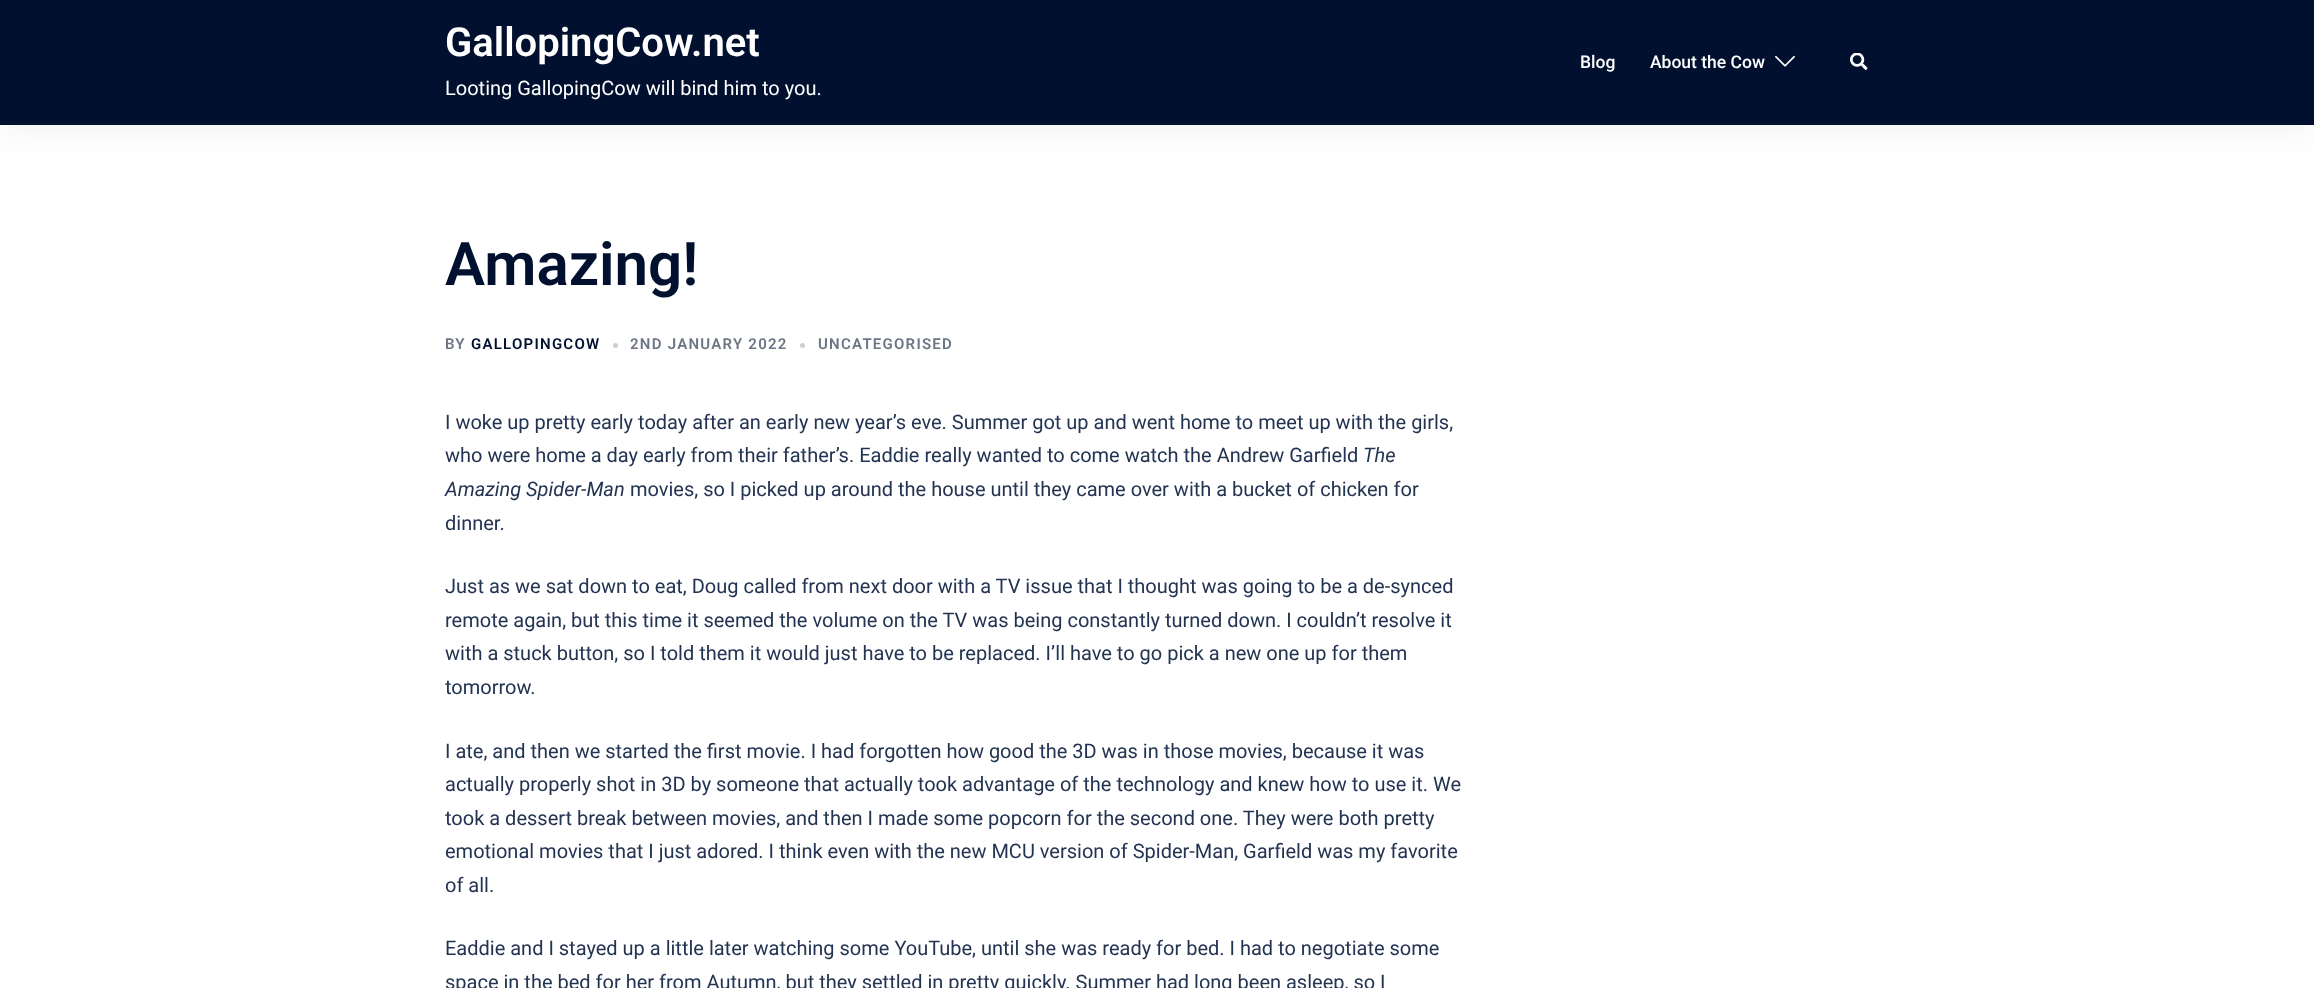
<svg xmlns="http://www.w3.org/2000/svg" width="2314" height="988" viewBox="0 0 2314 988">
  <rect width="100%" height="100%" fill="rgb(255,255,255)"/>
  <rect x="0" y="0" width="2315" height="125" fill="rgba(0,0,0,0.07)" filter="blur(19px)"/>
  <rect x="0" y="0" width="2314" height="125" fill="rgb(0,16,46)"/>
  <text x="445" y="56" font-family="Roboto" font-size="40" font-weight="600" fill="rgb(255,255,255)">GallopingCow.net</text>
  <text x="445" y="95" font-family="Roboto" font-size="20" fill="rgb(255,255,255)">Looting GallopingCow will bind him to you.</text>
  <g font-family="Roboto" font-size="17.5" font-weight="500" fill="rgb(255,255,255)">
    <text x="1580" y="68">Blog</text>
    <text x="1650" y="68">About the Cow</text>
  </g>
  <image x="1775" y="55" width="20" height="12" href="pic1.png"/>
  <image x="1850" y="53" width="18" height="17" href="pic2.png"/>
  <text x="445" y="285" font-family="Roboto" font-size="60" font-weight="600" fill="rgb(0,16,46)">Amazing!</text>
  <text x="445" y="349" font-family="Roboto" font-size="15" font-weight="600" letter-spacing="1.25" fill="rgb(109,118,133)">BY</text>
  <text x="471" y="349" font-family="Roboto" font-size="15" font-weight="600" letter-spacing="1.25" fill="rgb(0,16,46)">GALLOPINGCOW</text>
  <circle cx="615.5" cy="345.5" r="2.5" fill="rgb(204,207,213)"/>
  <text x="630" y="349" font-family="Roboto" font-size="15" font-weight="600" letter-spacing="1.25" fill="rgb(109,118,133)">2ND JANUARY 2022</text>
  <circle cx="802.5" cy="345.5" r="2.5" fill="rgb(204,207,213)"/>
  <text x="818" y="349" font-family="Roboto" font-size="15" font-weight="600" letter-spacing="1.25" fill="rgb(109,118,133)">UNCATEGORISED</text>
  <g font-family="Roboto" font-size="20" fill="rgb(35,52,82)">
    <text>
      <tspan x="445" y="429">I woke up pretty early today after an early new year’s eve. Summer got up and went home to meet up with the girls,</tspan>
      <tspan x="445" y="462">who were home a day early from their father’s. Eaddie really wanted to come watch the Andrew Garfield</tspan>
    </text>
  </g>
  <g font-family="Roboto" font-size="20" font-style="italic" fill="rgb(35,52,82)">
    <text x="1363" y="462">The</text>
    <text x="445" y="496">Amazing Spider-Man</text>
  </g>
  <g font-family="Roboto" font-size="20" fill="rgb(35,52,82)">
    <text x="630" y="496">movies, so I picked up around the house until they came over with a bucket of chicken for</text>
    <text x="445" y="530">dinner.</text>
    <text>
      <tspan x="445" y="593">Just as we sat down to eat, Doug called from next door with a TV issue that I thought was going to be a de-synced</tspan>
      <tspan x="445" y="627">remote again, but this time it seemed the volume on the TV was being constantly turned down. I couldn’t resolve it</tspan>
      <tspan x="445" y="660">with a stuck button, so I told them it would just have to be replaced. I’ll have to go pick a new one up for them</tspan>
      <tspan x="445" y="694">tomorrow.</tspan>
    </text>
    <text>
      <tspan x="445" y="758">I ate, and then we started the first movie. I had forgotten how good the 3D was in those movies, because it was</tspan>
      <tspan x="445" y="791">actually properly shot in 3D by someone that actually took advantage of the technology and knew how to use it. We</tspan>
      <tspan x="445" y="825">took a dessert break between movies, and then I made some popcorn for the second one. They were both pretty</tspan>
      <tspan x="445" y="858">emotional movies that I just adored. I think even with the new MCU version of Spider-Man, Garfield was my favorite</tspan>
      <tspan x="445" y="892">of all.</tspan>
    </text>
    <text>
      <tspan x="445" y="955">Eaddie and I stayed up a little later watching some YouTube, until she was ready for bed. I had to negotiate some</tspan>
      <tspan x="445" y="989">space in the bed for her from Autumn, but they settled in pretty quickly. Summer had long been asleep, so I</tspan>
    </text>
  </g>
</svg>
